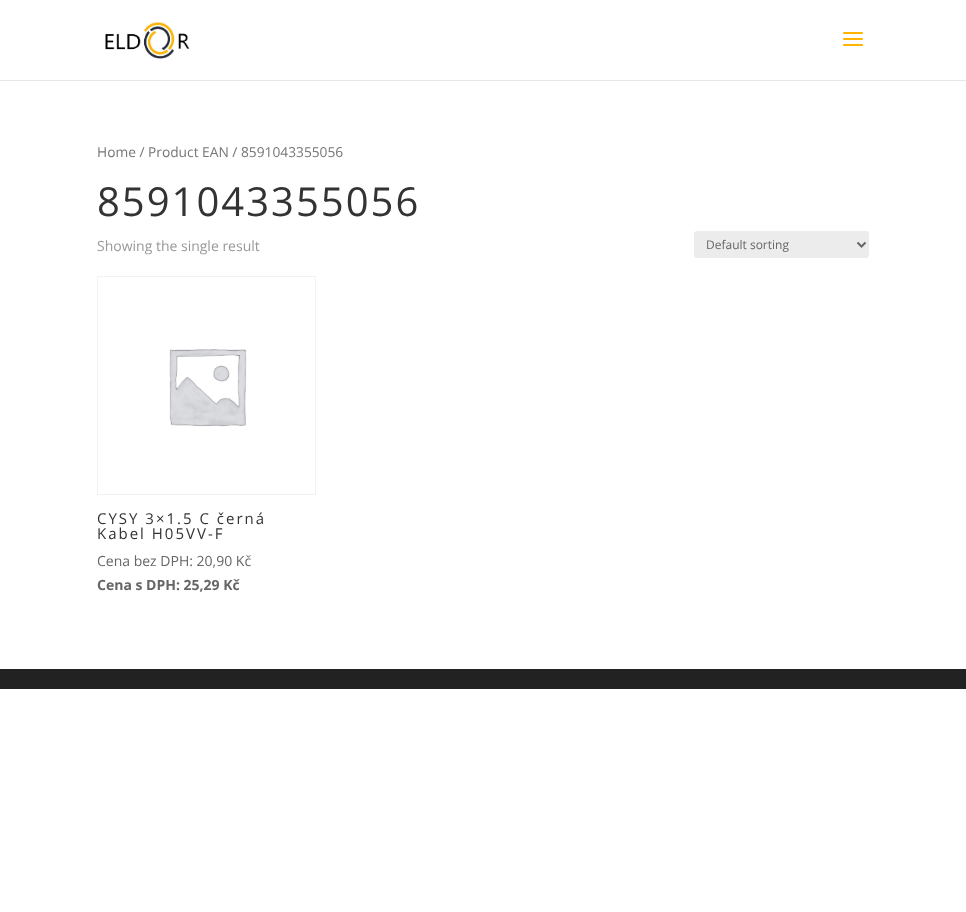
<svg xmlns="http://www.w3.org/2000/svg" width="966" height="912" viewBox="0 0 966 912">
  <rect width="100%" height="100%" fill="rgb(255,255,255)"/>
  <rect x="0" y="80" width="966" height="1" fill="rgb(230,230,230)"/>
  <image x="105" y="22" width="85" height="37" href="pic1.png"/>
  <image x="843" y="32" width="20" height="14" href="pic2.png"/>
  <text x="97" y="157" font-family="Open Sans" font-size="13.75" fill="rgb(118,118,118)">Home / Product EAN / 8591043355056</text>
  <text x="97" y="216" font-family="Open Sans" font-size="40" letter-spacing="2" fill="rgb(51,51,51)">8591043355056</text>
  <text x="97" y="251" font-family="Open Sans" font-size="14" fill="rgb(153,153,153)">Showing the single result</text>
  <rect x="694" y="231" width="175" height="27" rx="3" fill="rgb(236,236,236)"/>
  <path d="M857.5 242.5L861.5 246.5L865.5 242.5" fill="none" stroke="rgb(102,102,102)" stroke-width="2"/>
  <text x="706" y="249" font-family="Open Sans" font-size="12" fill="rgb(102,102,102)">Default sorting</text>
  <rect x="97.5" y="276.5" width="218" height="218" fill="none" stroke="rgb(242,242,242)"/>
  <image x="169" y="349" width="78" height="78" href="pic3.png"/>
  <g font-family="Open Sans" font-size="15" letter-spacing="2" fill="rgb(51,51,51)">
    <text>
      <tspan x="97" y="524">CYSY 3×1.5 C černá</tspan>
      <tspan x="97" y="539">Kabel H05VV-F</tspan>
    </text>
  </g>
  <text x="97" y="566" font-family="Open Sans" font-size="14" fill="rgb(102,102,102)">Cena bez DPH: 20,90 Kč</text>
  <text x="97" y="590" font-family="Open Sans" font-size="14" font-weight="bold" fill="rgb(102,102,102)">Cena s DPH: 25,29 Kč</text>
  <rect x="0" y="669" width="966" height="20" fill="rgb(34,34,34)"/>
</svg>
